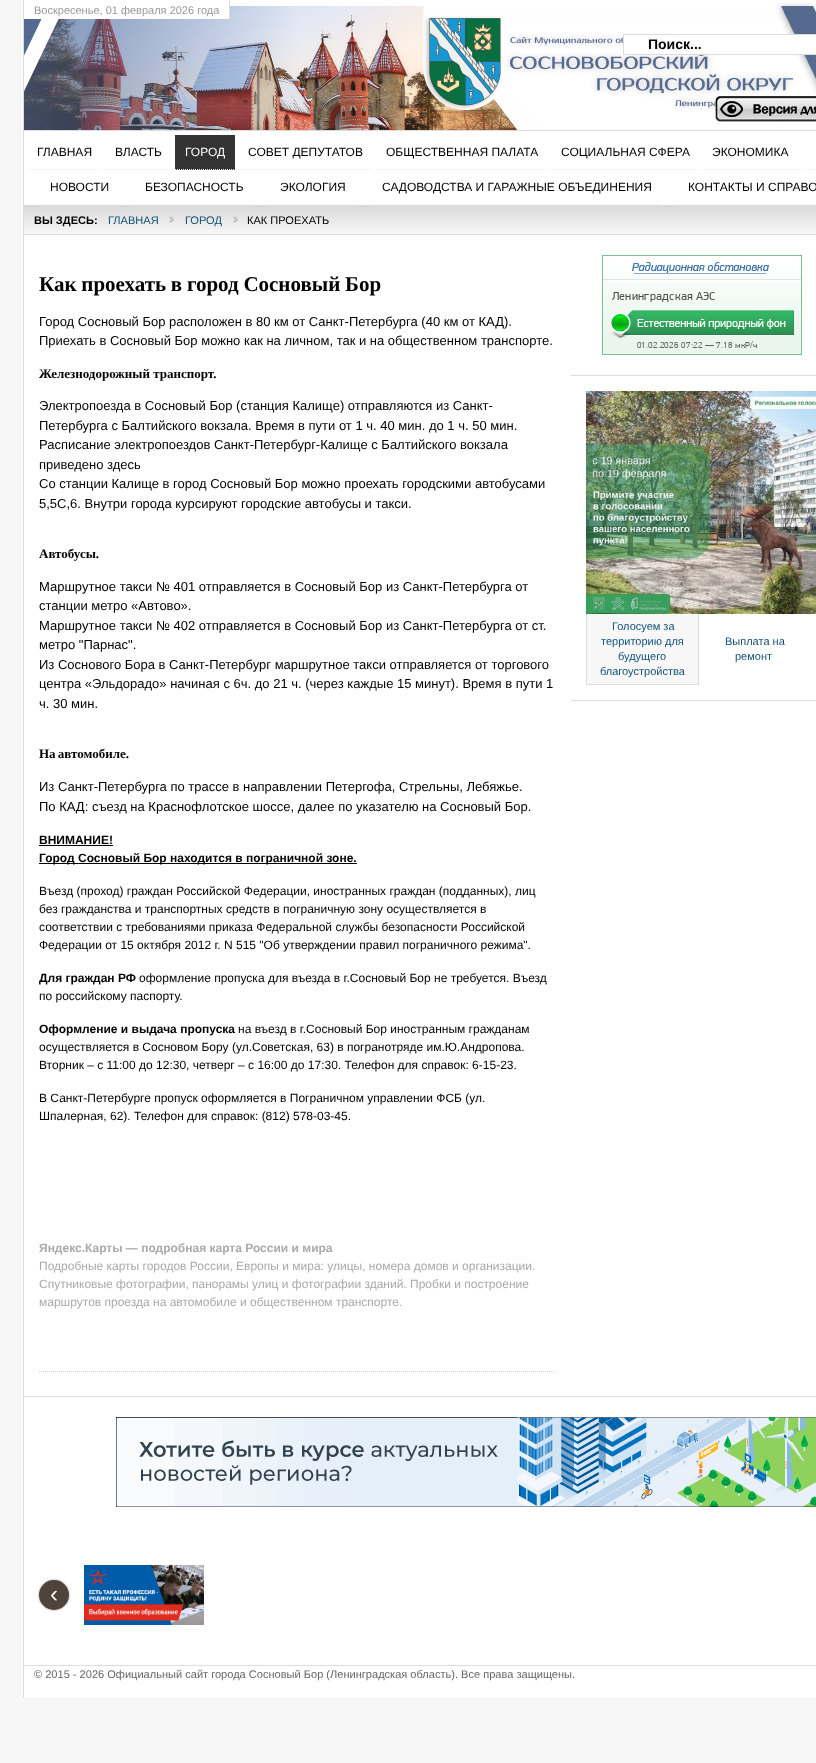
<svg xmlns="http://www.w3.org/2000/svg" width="816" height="1763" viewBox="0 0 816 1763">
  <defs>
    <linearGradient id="g1" gradientUnits="userSpaceOnUse" x1="480" y1="205" x2="480" y2="234"><stop offset="0" stop-color="rgb(217,217,217)"/><stop offset="0.25" stop-color="rgb(224,224,224)"/><stop offset="0.5" stop-color="rgb(232,232,232)"/><stop offset="0.75" stop-color="rgb(239,239,239)"/><stop offset="1" stop-color="rgb(247,247,247)"/></linearGradient>
  </defs>
  <rect width="100%" height="100%" fill="rgb(247,247,247)"/>
  <rect x="230" y="0" width="586" height="6" fill="rgb(255,255,255)"/>
  <image x="24" y="3" width="792" height="127" href="pic1.png"/>
  <rect x="24" y="0" width="205" height="19" fill="rgb(255,255,255)"/>
  <rect x="229" y="0" width="1" height="19" fill="rgb(221,221,221)"/>
  <text x="34" y="14" font-family="Liberation Sans" font-size="11" fill="rgb(153,153,153)">Воскресенье, 01 февраля 2026 года</text>
  <rect x="623.5" y="34.5" width="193" height="20" fill="rgb(255,255,255)" stroke="rgb(221,221,221)"/>
  <text x="648" y="49" font-family="Liberation Sans" font-size="14" font-weight="bold" fill="rgb(0,0,0)">Поиск...</text>
  <image x="715" y="96" width="101" height="26" href="pic2.png"/>
  <rect x="24" y="131" width="792" height="74" fill="rgb(255,255,255)"/>
  <rect x="23" y="130" width="793" height="1" fill="rgb(221,221,221)"/>
  <rect x="23" y="0" width="1" height="205" fill="rgb(221,221,221)"/>
  <path d="M27 169.5H102" fill="none" stroke="rgb(239,239,239)" stroke-dasharray="1 1"/>
  <text x="37" y="156" font-family="Liberation Sans" font-size="12" fill="rgb(0,0,0)">ГЛАВНАЯ</text>
  <path d="M105 169.5H172" fill="none" stroke="rgb(239,239,239)" stroke-dasharray="1 1"/>
  <text x="115" y="156" font-family="Liberation Sans" font-size="12" fill="rgb(0,0,0)">ВЛАСТЬ</text>
  <rect x="175" y="135" width="60" height="35" fill="rgb(51,51,51)"/>
  <path d="M175 169.5H235" fill="none" stroke="rgb(239,239,239)" stroke-dasharray="1 1"/>
  <text x="185" y="156" font-family="Liberation Sans" font-size="12" fill="rgb(255,255,255)">ГОРОД</text>
  <path d="M238 169.5H373" fill="none" stroke="rgb(239,239,239)" stroke-dasharray="1 1"/>
  <text x="248" y="156" font-family="Liberation Sans" font-size="12" fill="rgb(0,0,0)">СОВЕТ ДЕПУТАТОВ</text>
  <path d="M376 169.5H548" fill="none" stroke="rgb(239,239,239)" stroke-dasharray="1 1"/>
  <text x="386" y="156" font-family="Liberation Sans" font-size="12" fill="rgb(0,0,0)">ОБЩЕСТВЕННАЯ ПАЛАТА</text>
  <path d="M551 169.5H700" fill="none" stroke="rgb(239,239,239)" stroke-dasharray="1 1"/>
  <text x="561" y="156" font-family="Liberation Sans" font-size="12" fill="rgb(0,0,0)">СОЦИАЛЬНАЯ СФЕРА</text>
  <path d="M702 169.5H799" fill="none" stroke="rgb(239,239,239)" stroke-dasharray="1 1"/>
  <text x="712" y="156" font-family="Liberation Sans" font-size="12" fill="rgb(0,0,0)">ЭКОНОМИКА</text>
  <path d="M802 169.5H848" fill="none" stroke="rgb(239,239,239)" stroke-dasharray="1 1"/>
  <path d="M40 204.5H119" fill="none" stroke="rgb(239,239,239)" stroke-dasharray="1 1"/>
  <text x="50" y="191" font-family="Liberation Sans" font-size="12" fill="rgb(0,0,0)">НОВОСТИ</text>
  <path d="M135 204.5H254" fill="none" stroke="rgb(239,239,239)" stroke-dasharray="1 1"/>
  <text x="145" y="191" font-family="Liberation Sans" font-size="12" fill="rgb(0,0,0)">БЕЗОПАСНОСТЬ</text>
  <path d="M270 204.5H356" fill="none" stroke="rgb(239,239,239)" stroke-dasharray="1 1"/>
  <text x="280" y="191" font-family="Liberation Sans" font-size="12" fill="rgb(0,0,0)">ЭКОЛОГИЯ</text>
  <path d="M372 204.5H662" fill="none" stroke="rgb(239,239,239)" stroke-dasharray="1 1"/>
  <text x="382" y="191" font-family="Liberation Sans" font-size="12" fill="rgb(0,0,0)">САДОВОДСТВА И ГАРАЖНЫЕ ОБЪЕДИНЕНИЯ</text>
  <path d="M678 204.5H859" fill="none" stroke="rgb(239,239,239)" stroke-dasharray="1 1"/>
  <text x="688" y="191" font-family="Liberation Sans" font-size="12" fill="rgb(0,0,0)">КОНТАКТЫ И СПРАВО</text>
  <rect x="24" y="205" width="792" height="27" fill="url(#g1)"/>
  <rect x="23" y="234" width="793" height="1" fill="rgb(221,221,221)"/>
  <rect x="23" y="205" width="1" height="30" fill="rgb(221,221,221)"/>
  <text x="34" y="224" font-family="Liberation Sans" font-size="11.05" font-weight="bold" fill="rgb(0,0,0)">ВЫ ЗДЕСЬ:</text>
  <text x="108" y="224" font-family="Liberation Sans" font-size="11.05" fill="rgb(20,80,119)">ГЛАВНАЯ</text>
  <image x="169" y="216" width="5" height="7" href="pic3.png"/>
  <text x="185" y="224" font-family="Liberation Sans" font-size="11.05" fill="rgb(20,80,119)">ГОРОД</text>
  <image x="233" y="216" width="5" height="7" href="pic3.png"/>
  <text x="247" y="224" font-family="Liberation Sans" font-size="11.05" fill="rgb(0,0,0)">КАК ПРОЕХАТЬ</text>
  <rect x="24" y="235" width="792" height="1161" fill="rgb(255,255,255)"/>
  <path d="M39 1371.5H555" fill="none" stroke="rgb(204,204,204)" stroke-dasharray="1 1"/>
  <text x="39" y="291" word-spacing="-0.5" font-family="Liberation Serif" font-size="21" font-weight="bold" fill="rgb(0,0,0)">Как проехать в город Сосновый Бор</text>
  <g font-family="Liberation Sans" font-size="13" fill="rgb(0,0,0)">
    <text>
      <tspan x="39" y="326">Город Сосновый Бор расположен в 80 км от Санкт-Петербурга (40 км от КАД).</tspan>
      <tspan x="39" y="345">Приехать в Сосновый Бор можно как на личном, так и на общественном транспорте.</tspan>
    </text>
  </g>
  <text x="39" y="378" font-family="Liberation Serif" font-size="13" font-weight="bold" fill="rgb(0,0,0)">Железнодорожный транспорт.</text>
  <g font-family="Liberation Sans" font-size="13" fill="rgb(0,0,0)">
    <text>
      <tspan x="39" y="410">Электропоезда в Сосновый Бор (станция Калище) отправляются из Санкт-</tspan>
      <tspan x="39" y="430">Петербурга с Балтийского вокзала. Время в пути от 1 ч. 40 мин. до 1 ч. 50 мин.</tspan>
      <tspan x="39" y="449">Расписание электропоездов Санкт-Петербург-Калище с Балтийского вокзала</tspan>
      <tspan x="39" y="469">приведено здесь</tspan>
      <tspan x="39" y="488">Со станции Калище в город Сосновый Бор можно проехать городскими автобусами</tspan>
      <tspan x="39" y="508">5,5С,6. Внутри города курсируют городские автобусы и такси.</tspan>
    </text>
  </g>
  <text x="39" y="558" font-family="Liberation Serif" font-size="13" font-weight="bold" fill="rgb(0,0,0)">Автобусы.</text>
  <g font-family="Liberation Sans" font-size="13" fill="rgb(0,0,0)">
    <text>
      <tspan x="39" y="591">Маршрутное такси № 401 отправляется в Сосновый Бор из Санкт-Петербурга от</tspan>
      <tspan x="39" y="610">станции метро «Автово».</tspan>
      <tspan x="39" y="630">Маршрутное такси № 402 отправляется в Сосновый Бор из Санкт-Петербурга от ст.</tspan>
      <tspan x="39" y="649">метро "Парнас".</tspan>
      <tspan x="39" y="669">Из Соснового Бора в Санкт-Петербург маршрутное такси отправляется от торгового</tspan>
      <tspan x="39" y="688">центра «Эльдорадо» начиная с 6ч. до 21 ч. (через каждые 15 минут). Время в пути 1</tspan>
      <tspan x="39" y="708">ч. 30 мин.</tspan>
    </text>
  </g>
  <text x="39" y="758" word-spacing="-1" font-family="Liberation Serif" font-size="13" font-weight="bold" fill="rgb(0,0,0)">На автомобиле.</text>
  <g font-family="Liberation Sans" font-size="13" fill="rgb(0,0,0)">
    <text>
      <tspan x="39" y="791">Из Санкт-Петербурга по трассе в направлении Петергофа, Стрельны, Лебяжье.</tspan>
      <tspan x="39" y="811">По КАД: съезд на Краснофлотское шоссе, далее по указателю на Сосновый Бор.</tspan>
    </text>
  </g>
  <text x="39" y="844" font-family="Liberation Sans" font-size="12" font-weight="bold" fill="rgb(0,0,0)">ВНИМАНИЕ!</text>
  <rect x="39" y="845" width="74" height="1" fill="rgb(0,0,0)"/>
  <rect x="39" y="863" width="318" height="1" fill="rgb(0,0,0)"/>
  <text x="39" y="862" font-family="Liberation Sans" font-size="12" font-weight="bold" fill="rgb(0,0,0)">Город Сосновый Бор находится в пограничной зоне.</text>
  <g font-family="Liberation Sans" font-size="12" fill="rgb(0,0,0)">
    <text>
      <tspan x="39" y="895">Въезд (проход) граждан Российской Федерации, иностранных граждан (подданных), лиц</tspan>
      <tspan x="39" y="913">без гражданства и транспортных средств в пограничную зону осуществляется в</tspan>
      <tspan x="39" y="931">соответствии с требованиями приказа Федеральной службы безопасности Российской</tspan>
      <tspan x="39" y="949">Федерации от 15 октября 2012 г. N 515 "Об утверждении правил пограничного режима".</tspan>
    </text>
  </g>
  <text x="39" y="982" font-family="Liberation Sans" font-size="12" font-weight="bold" fill="rgb(0,0,0)">Для граждан РФ</text>
  <g font-family="Liberation Sans" font-size="12" fill="rgb(0,0,0)">
    <text x="139" y="982">оформление пропуска для въезда в г.Сосновый Бор не требуется. Въезд</text>
    <text x="39" y="1000">по российскому паспорту.</text>
  </g>
  <text x="39" y="1033" font-family="Liberation Sans" font-size="12" font-weight="bold" fill="rgb(0,0,0)">Оформление и выдача пропуска</text>
  <g font-family="Liberation Sans" font-size="12" fill="rgb(0,0,0)">
    <text x="238" y="1033">на въезд в г.Сосновый Бор иностранным гражданам</text>
    <text>
      <tspan x="39" y="1051">осуществляется в Сосновом Бору (ул.Советская, 63) в погранотряде им.Ю.Андропова.</tspan>
      <tspan x="39" y="1069">Вторник – с 11:00 до 12:30, четверг – с 16:00 до 17:30. Телефон для справок: 6-15-23.</tspan>
    </text>
    <text>
      <tspan x="39" y="1102">В Санкт-Петербурге пропуск оформляется в Пограничном управлении ФСБ (ул.</tspan>
      <tspan x="39" y="1120">Шпалерная, 62). Телефон для справок: (812) 578-03-45.</tspan>
    </text>
  </g>
  <text x="39" y="1252" font-family="Liberation Sans" font-size="12" font-weight="bold" fill="rgb(169,169,169)">Яндекс.Карты — подробная карта России и мира</text>
  <g font-family="Liberation Sans" font-size="12" fill="rgb(169,169,169)">
    <text>
      <tspan x="39" y="1270">Подробные карты городов России, Европы и мира: улицы, номера домов и организации.</tspan>
      <tspan x="39" y="1288">Спутниковые фотографии, панорамы улиц и фотографии зданий. Пробки и построение</tspan>
      <tspan x="39" y="1306">маршрутов проезда на автомобиле и общественном транспорте.</tspan>
    </text>
  </g>
  <rect x="571" y="375" width="245" height="1" fill="rgb(221,221,221)"/>
  <image x="602" y="255" width="200" height="100" href="pic4.png"/>
  <rect x="571" y="700" width="245" height="1" fill="rgb(221,221,221)"/>
  <rect x="698" y="613" width="1" height="72" fill="rgb(221,221,221)"/>
  <rect x="586" y="684" width="113" height="1" fill="rgb(221,221,221)"/>
  <rect x="586" y="613" width="1" height="72" fill="rgb(221,221,221)"/>
  <image x="586" y="391" width="230" height="223" href="pic5.png"/>
  <rect x="587" y="614" width="111" height="70" fill="rgb(247,247,247)"/>
  <rect x="611" y="632" width="63" height="1" fill="rgb(255,255,255)"/>
  <text x="612" y="630" font-family="Liberation Sans" font-size="11" fill="rgb(20,80,119)">Голосуем за</text>
  <rect x="611" y="620" width="1" height="13" fill="rgb(255,255,255)"/>
  <rect x="601" y="647" width="83" height="1" fill="rgb(255,255,255)"/>
  <text x="601" y="645" font-family="Liberation Sans" font-size="11" fill="rgb(20,80,119)">территорию для</text>
  <rect x="618" y="662" width="48" height="1" fill="rgb(255,255,255)"/>
  <text x="618" y="660" font-family="Liberation Sans" font-size="11" fill="rgb(20,80,119)">будущего</text>
  <rect x="684" y="665" width="1" height="13" fill="rgb(255,255,255)"/>
  <rect x="600" y="677" width="85" height="1" fill="rgb(255,255,255)"/>
  <g font-family="Liberation Sans" font-size="11" fill="rgb(20,80,119)">
    <text x="600" y="675">благоустройства</text>
    <text x="725" y="645">Выплата на</text>
    <text x="735" y="660">ремонт</text>
  </g>
  <rect x="24" y="1397" width="792" height="268" fill="rgb(255,255,255)"/>
  <rect x="23" y="1396" width="793" height="1" fill="rgb(221,221,221)"/>
  <rect x="23" y="235" width="1" height="1430" fill="rgb(221,221,221)"/>
  <image x="116" y="1417" width="700" height="90" href="pic6.png"/>
  <rect x="39" y="1580" width="30" height="30" rx="15" fill="rgb(153,153,153)" filter="blur(1px)"/>
  <circle cx="54" cy="1595" r="15" fill="rgb(78,68,60)"/>
  <text x="50" y="1602" font-family="Liberation Sans" font-size="24" fill="rgb(255,255,255)">‹</text>
  <image x="84" y="1565" width="120" height="60" href="pic7.png"/>
  <rect x="24" y="1666" width="792" height="32" fill="rgb(255,255,255)"/>
  <rect x="23" y="1665" width="793" height="1" fill="rgb(221,221,221)"/>
  <rect x="23" y="1665" width="1" height="33" fill="rgb(221,221,221)"/>
  <text x="34" y="1678" font-family="Liberation Sans" font-size="11.05" fill="rgb(102,102,102)">© 2015 - 2026 Официальный сайт города Сосновый Бор (Ленинградская область). Все права защищены.</text>
</svg>
